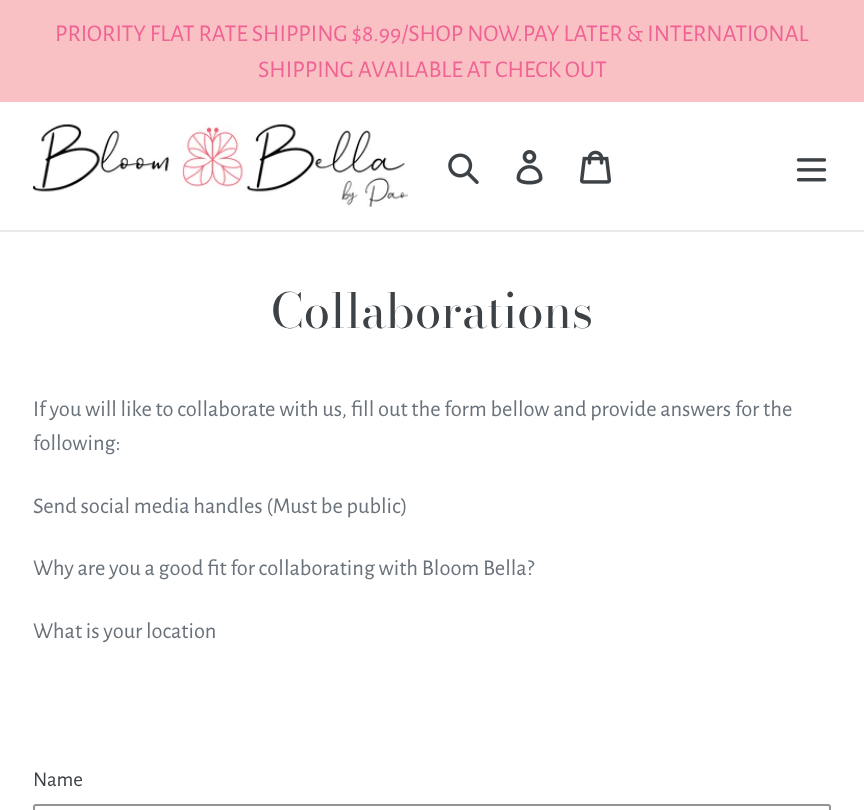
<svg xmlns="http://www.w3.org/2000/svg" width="864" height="810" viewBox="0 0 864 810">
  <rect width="100%" height="100%" fill="rgb(255,255,255)"/>
  <rect x="0" y="0" width="864" height="102" fill="rgb(249,193,196)"/>
  <g font-family="Alegreya Sans" font-size="24" fill="rgb(240,98,147)">
    <text x="55" y="41">PRIORITY FLAT RATE SHIPPING $8.99/SHOP NOW.PAY LATER &amp; INTERNATIONAL</text>
    <text x="258" y="77">SHIPPING AVAILABLE AT CHECK OUT</text>
  </g>
  <rect x="0" y="230" width="864" height="2" fill="rgb(232,233,235)"/>
  <image x="33" y="124" width="375" height="83" href="pic1.png"/>
  <image x="448" y="153" width="31" height="31" href="pic2.png"/>
  <image x="516" y="150" width="27" height="35" href="pic3.png"/>
  <image x="579" y="150" width="32" height="34" href="pic4.png"/>
  <image x="796" y="158" width="31" height="24" href="pic5.png"/>
  <text x="271" y="328" font-family="Bodoni Moda" font-size="48" fill="rgb(61,66,70)">Collaborations</text>
  <g font-family="Alegreya Sans" font-size="22.5" fill="rgb(105,114,123)">
    <text>
      <tspan x="33" y="416">If you will like to collaborate with us, fill out the form bellow and provide answers for the</tspan>
      <tspan x="33" y="450">following:</tspan>
    </text>
    <text x="33" y="513">Send social media handles (Must be public)</text>
    <text x="33" y="575">Why are you a good fit for collaborating with Bloom Bella?</text>
    <text x="33" y="638">What is your location</text>
  </g>
  <text x="33" y="786" font-family="Alegreya Sans" font-size="21" fill="rgb(61,66,70)">Name</text>
  <rect x="34" y="805" width="796" height="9" rx="2" fill="none" stroke="rgb(148,148,148)" stroke-width="2"/>
</svg>
